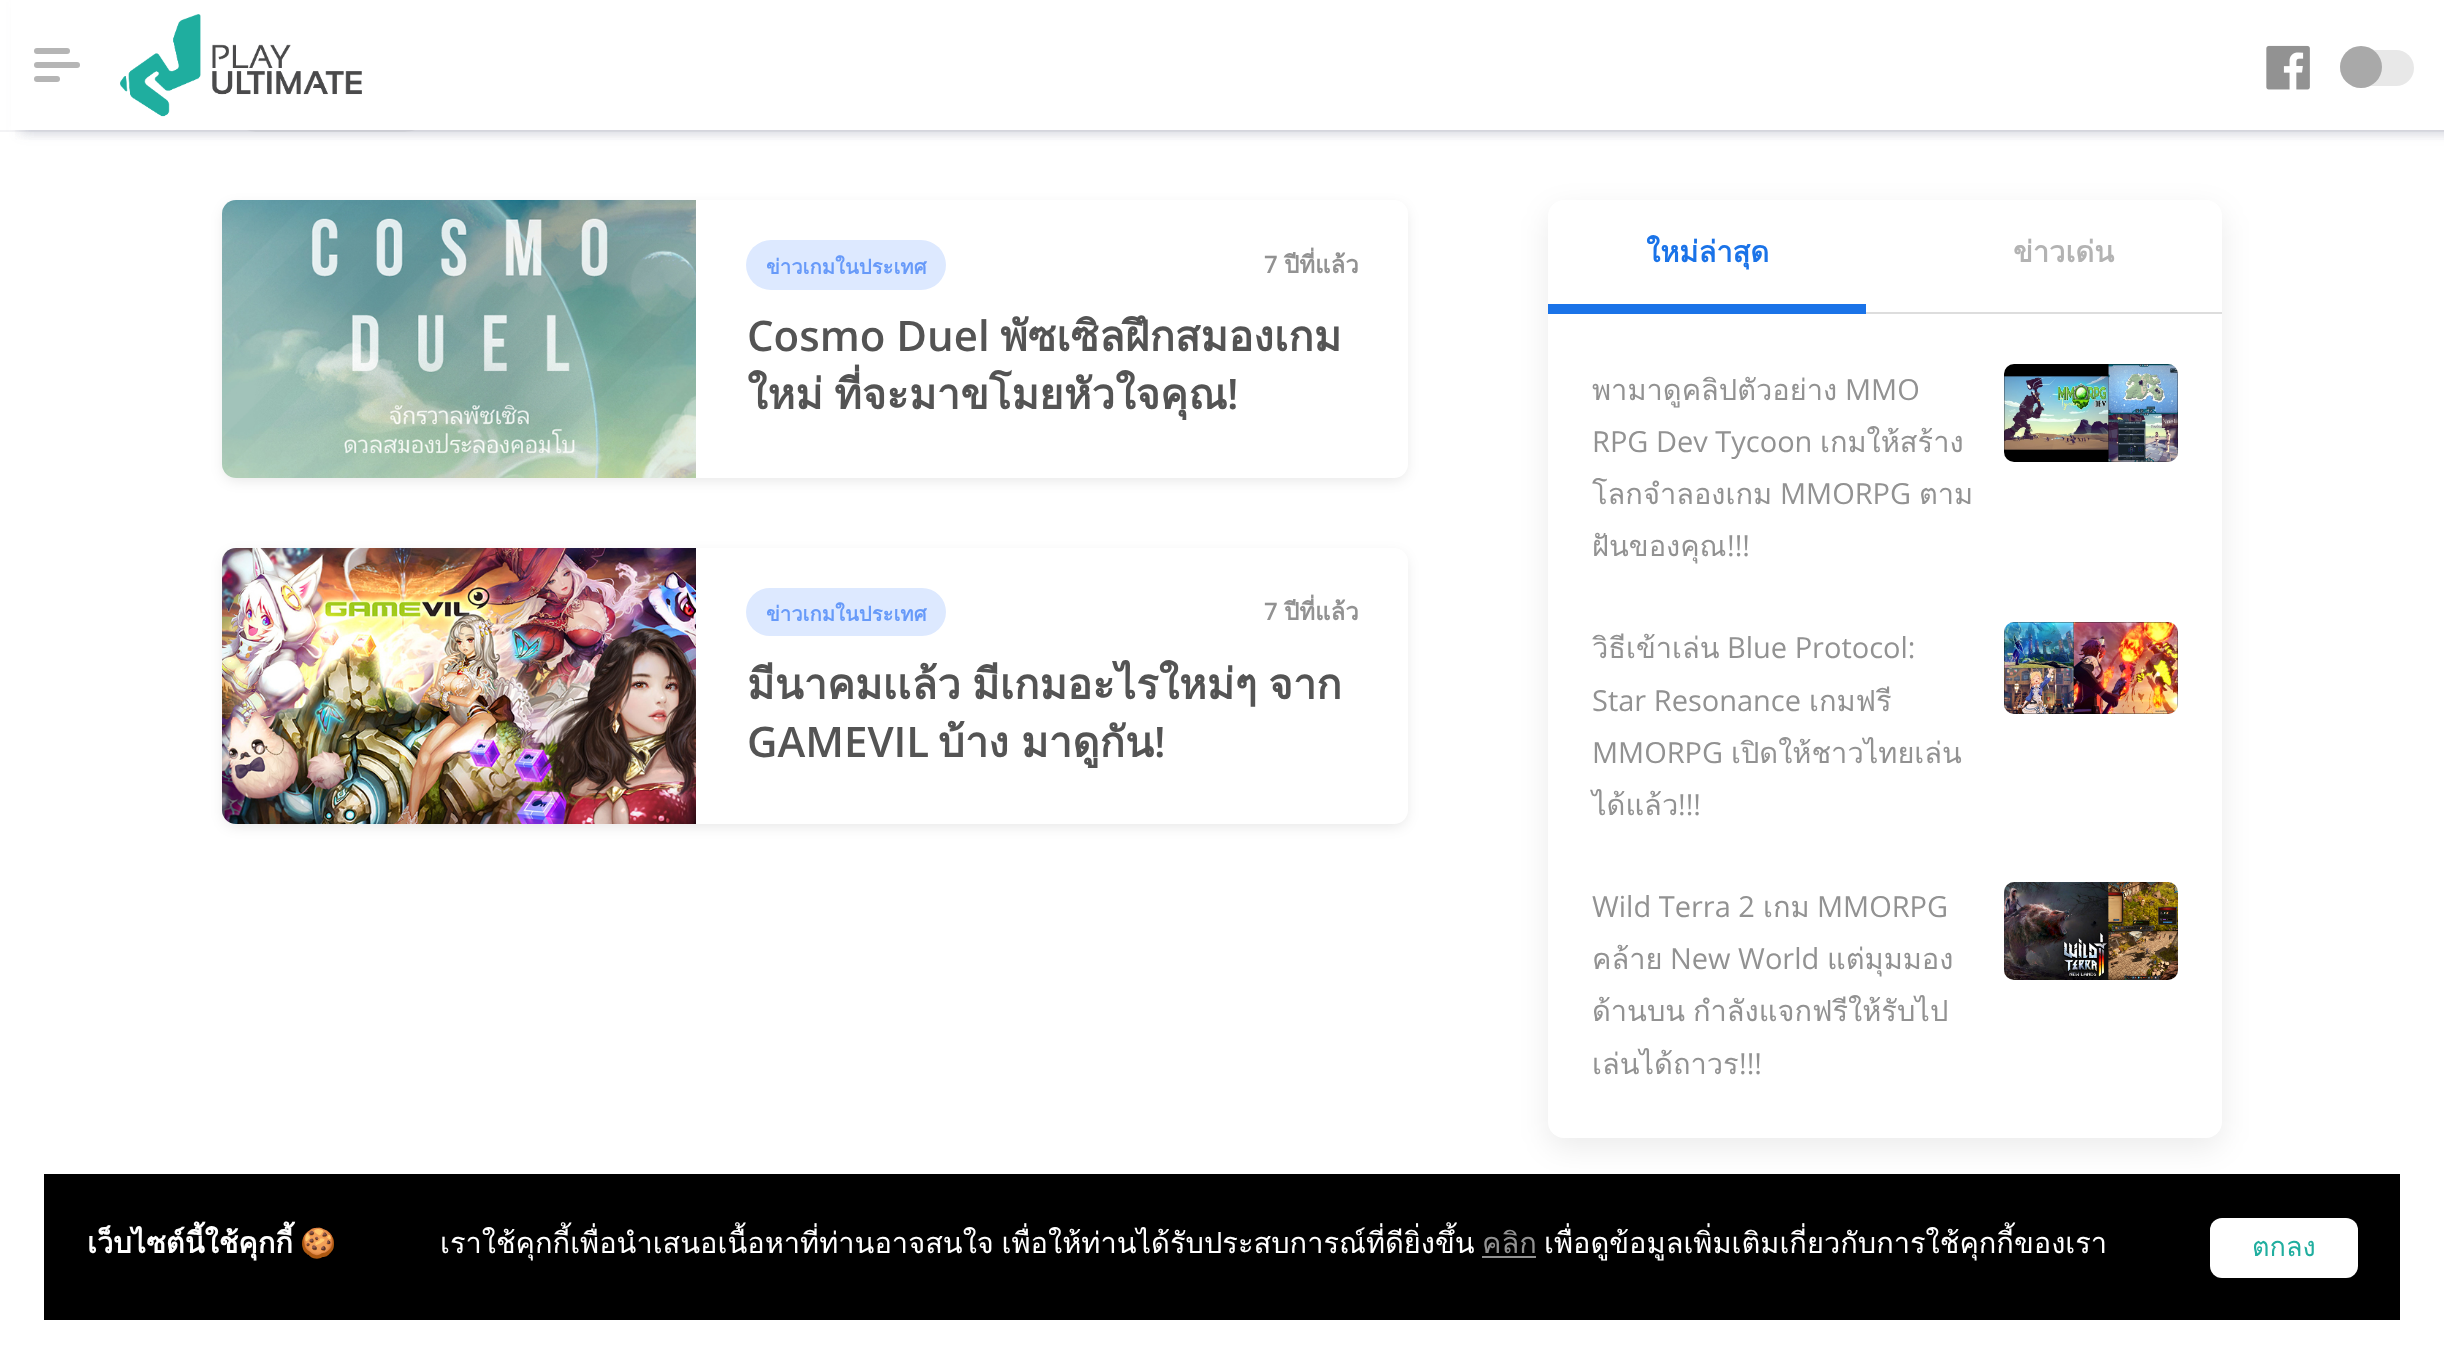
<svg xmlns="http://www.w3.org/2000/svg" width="2444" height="1363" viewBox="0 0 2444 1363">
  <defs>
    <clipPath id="clip1"><rect x="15" y="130" width="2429" height="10"/></clipPath>
    <clipPath id="clip2"><rect x="746" y="654" width="612" height="116"/></clipPath>
  </defs>
  <rect width="100%" height="100%" fill="rgb(255,255,255)"/>
  <rect x="222" y="60" width="218" height="72" rx="36" fill="rgb(242,242,242)"/>
  <rect x="20" y="2" width="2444" height="130" fill="rgba(65,71,108,0.15)" filter="blur(7px)"/>
  <rect x="0" y="130" width="2444" height="2" fill="rgba(139,141,157,0.05)"/>
  <rect x="11" y="0" width="2433" height="130" fill="rgb(255,255,255)"/>
  <g clip-path="url(#clip1)">
    <rect x="20" y="2" width="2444" height="130" fill="rgba(65,71,108,0.15)" filter="blur(7px)"/>
  </g>
  <rect x="0" y="130" width="2444" height="2" fill="rgba(139,141,157,0.05)"/>
  <rect x="34" y="62" width="46" height="6" rx="3" fill="rgb(181,181,181)"/>
  <rect x="34" y="48" width="36" height="6" rx="3" fill="rgb(181,181,181)"/>
  <rect x="34" y="76" width="26" height="6" rx="3" fill="rgb(181,181,181)"/>
  <image x="120" y="14" width="242" height="103" href="pic1.png"/>
  <image x="2266" y="45" width="44" height="45" href="pic2.png"/>
  <rect x="2340" y="50" width="74" height="36" rx="18" fill="rgb(232,232,232)"/>
  <circle cx="2361" cy="67" r="21" fill="rgb(169,169,169)"/>
  <rect x="224" y="206" width="1182" height="274" rx="12" fill="rgba(0,0,0,0.1)" filter="blur(7px)"/>
  <rect x="222" y="200" width="1186" height="278" rx="14" fill="rgb(255,255,255)"/>
  <image x="222" y="200" width="474" height="278" href="pic3.png"/>
  <rect x="746" y="240" width="200" height="50" rx="25" fill="rgb(221,233,255)"/>
  <text x="766" y="274" font-family="Loma" font-size="20.25" font-weight="bold" fill="rgb(103,154,249)">ข่าวเกมในประเทศ</text>
  <text x="1264" y="273" font-family="Open Sans" font-size="24" font-weight="600" fill="rgb(146,146,146)">7</text>
  <text x="1284" y="273" font-family="Loma" font-size="24" font-weight="bold" fill="rgb(146,146,146)">ปีที่แล้ว</text>
  <text x="747" y="351" font-family="Open Sans" font-size="42" font-weight="600" fill="rgb(84,84,84)">Cosmo Duel</text>
  <g font-family="Loma" font-size="42" font-weight="bold" fill="rgb(84,84,84)">
    <text x="1000" y="351">พัซเซิลฝึกสมองเกม</text>
    <text x="747" y="409" word-spacing="-3">ใหม่ ที่จะมาขโมยหัวใจคุณ</text>
  </g>
  <text x="1227" y="409" font-family="Open Sans" font-size="42" font-weight="600" fill="rgb(84,84,84)">!</text>
  <rect x="224" y="554" width="1182" height="272" rx="12" fill="rgba(0,0,0,0.1)" filter="blur(7px)"/>
  <rect x="222" y="548" width="1186" height="276" rx="14" fill="rgb(255,255,255)"/>
  <image x="222" y="548" width="474" height="276" href="pic4.png"/>
  <rect x="746" y="588" width="200" height="48" rx="24" fill="rgb(221,233,255)"/>
  <text x="766" y="621" font-family="Loma" font-size="20.25" font-weight="bold" fill="rgb(103,154,249)">ข่าวเกมในประเทศ</text>
  <text x="1264" y="620" font-family="Open Sans" font-size="24" font-weight="600" fill="rgb(146,146,146)">7</text>
  <text x="1284" y="620" font-family="Loma" font-size="24" font-weight="bold" fill="rgb(146,146,146)">ปีที่แล้ว</text>
  <g clip-path="url(#clip2)">
    <text x="747" y="699" word-spacing="-3" font-family="Loma" font-size="42" font-weight="bold" fill="rgb(84,84,84)">มีนาคมเเล้ว มีเกมอะไรใหม่ๆ จาก</text>
  </g>
  <text x="747" y="757" font-family="Open Sans" font-size="42" font-weight="600" fill="rgb(84,84,84)">GAMEVIL</text>
  <text x="938" y="757" word-spacing="-2" font-family="Loma" font-size="42" font-weight="bold" fill="rgb(84,84,84)">บ้าง มาดูกัน</text>
  <text x="1154" y="757" font-family="Open Sans" font-size="42" font-weight="600" fill="rgb(84,84,84)">!</text>
  <rect x="1548" y="210" width="674" height="938" rx="16" fill="rgba(0,0,0,0.08)" filter="blur(15px)"/>
  <rect x="1548" y="200" width="674" height="938" rx="16" fill="rgb(255,255,255)"/>
  <rect x="1548" y="304" width="318" height="10" fill="rgb(26,115,232)"/>
  <text x="1646" y="262" font-family="Loma" font-size="29" font-weight="bold" fill="rgb(26,115,232)">ใหม่ล่าสุด</text>
  <text x="2013" y="262" font-family="Loma" font-size="29" font-weight="bold" fill="rgb(179,179,179)">ข่าวเด่น</text>
  <rect x="1866" y="312" width="356" height="2" fill="rgb(221,221,221)"/>
  <text x="1592" y="400" font-family="Loma" font-size="29" fill="rgb(146,146,146)">พามาดูคลิปตัวอย่าง</text>
  <g font-family="Open Sans" font-size="29" fill="rgb(146,146,146)">
    <text x="1845" y="400">MMO</text>
    <text x="1592" y="452">RPG Dev Tycoon</text>
  </g>
  <g font-family="Loma" font-size="29" fill="rgb(146,146,146)">
    <text x="1820" y="452">เกมให้สร้าง</text>
    <text x="1592" y="504">โลกจำลองเกม</text>
  </g>
  <text x="1780" y="504" font-family="Open Sans" font-size="29" fill="rgb(146,146,146)">MMORPG</text>
  <g font-family="Loma" font-size="29" fill="rgb(146,146,146)">
    <text x="1919" y="504">ตาม</text>
    <text x="1592" y="556">ฝันของคุณ</text>
  </g>
  <text x="1727" y="556" font-family="Open Sans" font-size="29" fill="rgb(146,146,146)">!!!</text>
  <image x="2004" y="364" width="174" height="98" href="pic5.png"/>
  <text x="1592" y="658" font-family="Loma" font-size="29" fill="rgb(146,146,146)">วิธีเข้าเล่น</text>
  <g font-family="Open Sans" font-size="29" fill="rgb(146,146,146)">
    <text x="1727" y="658">Blue Protocol:</text>
    <text x="1592" y="711">Star Resonance</text>
  </g>
  <text x="1809" y="711" font-family="Loma" font-size="29" fill="rgb(146,146,146)">เกมฟรี</text>
  <text x="1592" y="763" font-family="Open Sans" font-size="29" fill="rgb(146,146,146)">MMORPG</text>
  <g font-family="Loma" font-size="29" fill="rgb(146,146,146)">
    <text x="1731" y="763">เปิดให้ชาวไทยเล่น</text>
    <text x="1592" y="815">ได้แล้ว</text>
  </g>
  <text x="1678" y="815" font-family="Open Sans" font-size="29" fill="rgb(146,146,146)">!!!</text>
  <image x="2004" y="622" width="174" height="92" href="pic6.png"/>
  <text x="1592" y="917" font-family="Open Sans" font-size="29" fill="rgb(146,146,146)">Wild Terra 2</text>
  <text x="1763" y="917" font-family="Loma" font-size="29" fill="rgb(146,146,146)">เกม</text>
  <text x="1817" y="917" font-family="Open Sans" font-size="29" fill="rgb(146,146,146)">MMORPG</text>
  <text x="1592" y="969" font-family="Loma" font-size="29" fill="rgb(146,146,146)">คล้าย</text>
  <text x="1670" y="969" font-family="Open Sans" font-size="29" fill="rgb(146,146,146)">New World</text>
  <g font-family="Loma" font-size="29" fill="rgb(146,146,146)">
    <text x="1827" y="969">แต่มุมมอง</text>
    <text>
      <tspan x="1592" y="1021" word-spacing="-2">ด้านบน กำลังแจกฟรีให้รับไป</tspan>
      <tspan x="1592" y="1074">เล่นได้ถาวร</tspan>
    </text>
  </g>
  <text x="1739" y="1074" font-family="Open Sans" font-size="29" fill="rgb(146,146,146)">!!!</text>
  <image x="2004" y="882" width="174" height="98" href="pic7.png"/>
  <rect x="44" y="1174" width="2356" height="146" fill="rgb(0,0,0)"/>
  <text x="87" y="1253" font-family="Loma" font-size="29" font-weight="bold" fill="rgb(255,255,255)">เว็บไซต์นี้ใช้คุกกี้</text>
  <text x="300" y="1253" font-family="Noto Color Emoji" font-size="29" font-weight="bold" fill="rgb(255,255,255)">🍪</text>
  <text x="440" y="1253" word-spacing="-2" font-family="Loma" font-size="29" fill="rgb(255,255,255)">เราใช้คุกกี้เพื่อนำเสนอเนื้อหาที่ท่านอาจสนใจ เพื่อให้ท่านได้รับประสบการณ์ที่ดียิ่งขึ้น</text>
  <text x="1482" y="1253" font-family="Loma" font-size="29" fill="rgb(146,146,146)">คลิก</text>
  <rect x="1482" y="1256" width="54" height="2" fill="rgb(146,146,146)"/>
  <text x="1544" y="1253" font-family="Loma" font-size="29" fill="rgb(255,255,255)">เพื่อดูข้อมูลเพิ่มเติมเกี่ยวกับการใช้คุกกี้ของเรา</text>
  <rect x="2210" y="1218" width="148" height="60" rx="12" fill="rgb(255,255,255)"/>
  <text x="2252" y="1256" font-family="Loma" font-size="27" fill="rgb(32,174,159)">ตกลง</text>
</svg>
